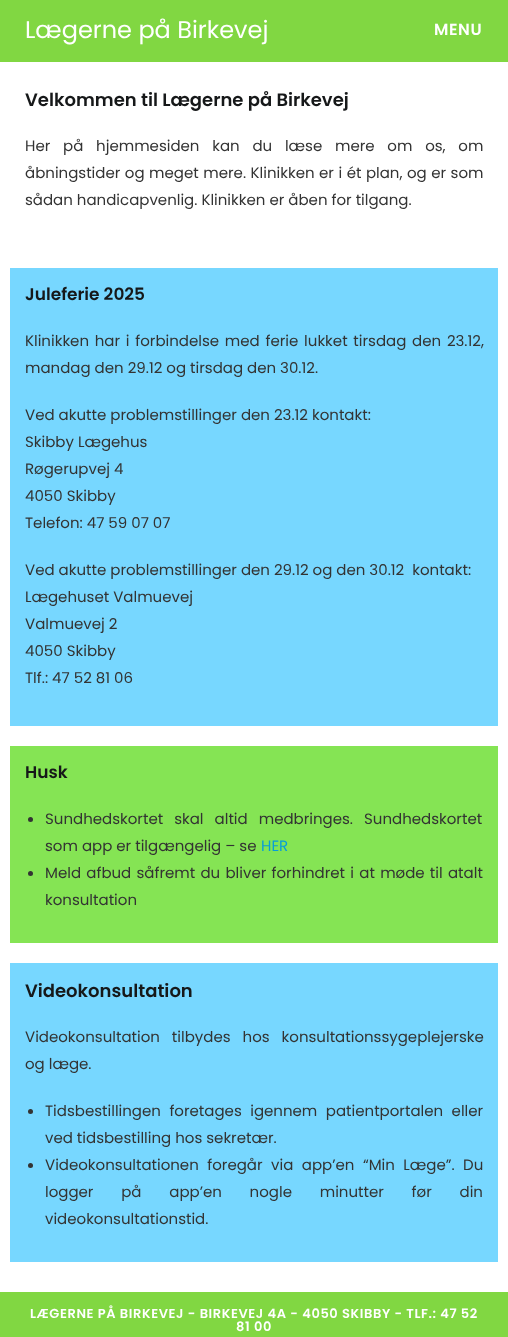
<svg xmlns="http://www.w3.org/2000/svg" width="508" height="1337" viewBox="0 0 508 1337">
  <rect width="100%" height="100%" fill="rgb(255,255,255)"/>
  <rect x="0" y="0" width="508" height="62" fill="rgb(129,215,66)"/>
  <text x="25" y="38" font-family="Poppins" font-size="24" fill="rgb(255,255,255)">Lægerne på Birkevej</text>
  <text x="434" y="35" font-family="Poppins" font-size="16" font-weight="600" letter-spacing="0.6" fill="rgb(255,255,255)">MENU</text>
  <text x="25" y="106" font-family="Poppins" font-size="18" font-weight="600" fill="rgb(22,24,25)">Velkommen til Lægerne på Birkevej</text>
  <g font-family="Poppins" font-size="15" fill="rgb(51,51,51)">
    <text>
      <tspan x="25" y="151" word-spacing="8.75">Her på hjemmesiden kan du læse mere om os, om</tspan>
      <tspan x="25" y="178" word-spacing="0.5">åbningstider og meget mere. Klinikken er i ét plan, og er som</tspan>
      <tspan x="25" y="205">sådan handicapvenlig. Klinikken er åben for tilgang.</tspan>
    </text>
  </g>
  <rect x="10" y="268" width="488" height="458" fill="rgb(119,215,255)"/>
  <text x="25" y="300" font-family="Poppins" font-size="17" font-weight="600" fill="rgb(22,24,25)">Juleferie 2025</text>
  <g font-family="Poppins" font-size="15" fill="rgb(51,51,51)">
    <text>
      <tspan x="25" y="346" word-spacing="1.75">Klinikken har i forbindelse med ferie lukket tirsdag den 23.12,</tspan>
      <tspan x="25" y="373">mandag den 29.12 og tirsdag den 30.12.</tspan>
    </text>
    <text>
      <tspan x="25" y="420">Ved akutte problemstillinger den 23.12 kontakt:</tspan>
      <tspan x="25" y="447">Skibby Lægehus</tspan>
      <tspan x="25" y="474">Røgerupvej 4</tspan>
      <tspan x="25" y="501">4050 Skibby</tspan>
      <tspan x="25" y="528">Telefon: 47 59 07 07</tspan>
    </text>
    <text xml:space="preserve"><tspan x="25" y="575">Ved akutte problemstillinger den 29.12 og den 30.12  kontakt:</tspan><tspan x="25" y="602">Lægehuset Valmuevej</tspan><tspan x="25" y="629">Valmuevej 2</tspan><tspan x="25" y="656">4050 Skibby</tspan><tspan x="25" y="683">Tlf.: 47 52 81 06</tspan></text>
  </g>
  <rect x="10" y="746" width="488" height="197" fill="rgb(133,228,84)"/>
  <text x="25" y="778" font-family="Poppins" font-size="17" font-weight="600" fill="rgb(22,24,25)">Husk</text>
  <circle cx="30.5" cy="819.5" r="2.5" fill="rgb(51,51,51)"/>
  <g font-family="Poppins" font-size="15" fill="rgb(51,51,51)">
    <text>
      <tspan x="45" y="824" word-spacing="7">Sundhedskortet skal altid medbringes. Sundhedskortet</tspan>
      <tspan x="45" y="851">som app er tilgængelig – se</tspan>
    </text>
  </g>
  <text x="261" y="851" font-family="Poppins" font-size="15" fill="rgb(7,157,217)">HER</text>
  <circle cx="30.5" cy="873.5" r="2.5" fill="rgb(51,51,51)"/>
  <g font-family="Poppins" font-size="15" fill="rgb(51,51,51)">
    <text>
      <tspan x="45" y="878" word-spacing="1.25">Meld afbud såfremt du bliver forhindret i at møde til atalt</tspan>
      <tspan x="45" y="905">konsultation</tspan>
    </text>
  </g>
  <rect x="10" y="963" width="488" height="299" fill="rgb(119,215,255)"/>
  <text x="25" y="997" font-family="Poppins" font-size="18" font-weight="600" fill="rgb(22,24,25)">Videokonsultation</text>
  <g font-family="Poppins" font-size="15" fill="rgb(51,51,51)">
    <text>
      <tspan x="25" y="1042" word-spacing="8">Videokonsultation tilbydes hos konsultationssygeplejerske</tspan>
      <tspan x="25" y="1069">og læge.</tspan>
    </text>
  </g>
  <circle cx="30.5" cy="1111.5" r="2.5" fill="rgb(51,51,51)"/>
  <g font-family="Poppins" font-size="15" fill="rgb(51,51,51)">
    <text>
      <tspan x="45" y="1116" word-spacing="4.5">Tidsbestillingen foretages igennem patientportalen eller</tspan>
      <tspan x="45" y="1143">ved tidsbestilling hos sekretær.</tspan>
    </text>
  </g>
  <circle cx="30.5" cy="1165.5" r="2.5" fill="rgb(51,51,51)"/>
  <g font-family="Poppins" font-size="15" fill="rgb(51,51,51)">
    <text>
      <tspan x="45" y="1170" word-spacing="4.5">Videokonsultationen foregår via app’en “Min Læge”. Du</tspan>
      <tspan x="45" y="1197" word-spacing="23.75">logger på app’en nogle minutter før din</tspan>
      <tspan x="45" y="1224">videokonsultationstid.</tspan>
    </text>
  </g>
  <rect x="0" y="1292" width="508" height="45" fill="rgb(129,215,66)"/>
  <g font-family="Poppins" font-size="13" font-weight="600" letter-spacing="0.6" fill="rgb(255,255,255)">
    <text x="30" y="1318">LÆGERNE PÅ BIRKEVEJ - BIRKEVEJ 4A - 4050 SKIBBY - TLF.: 47 52</text>
    <text x="236" y="1331">81 00</text>
  </g>
</svg>
